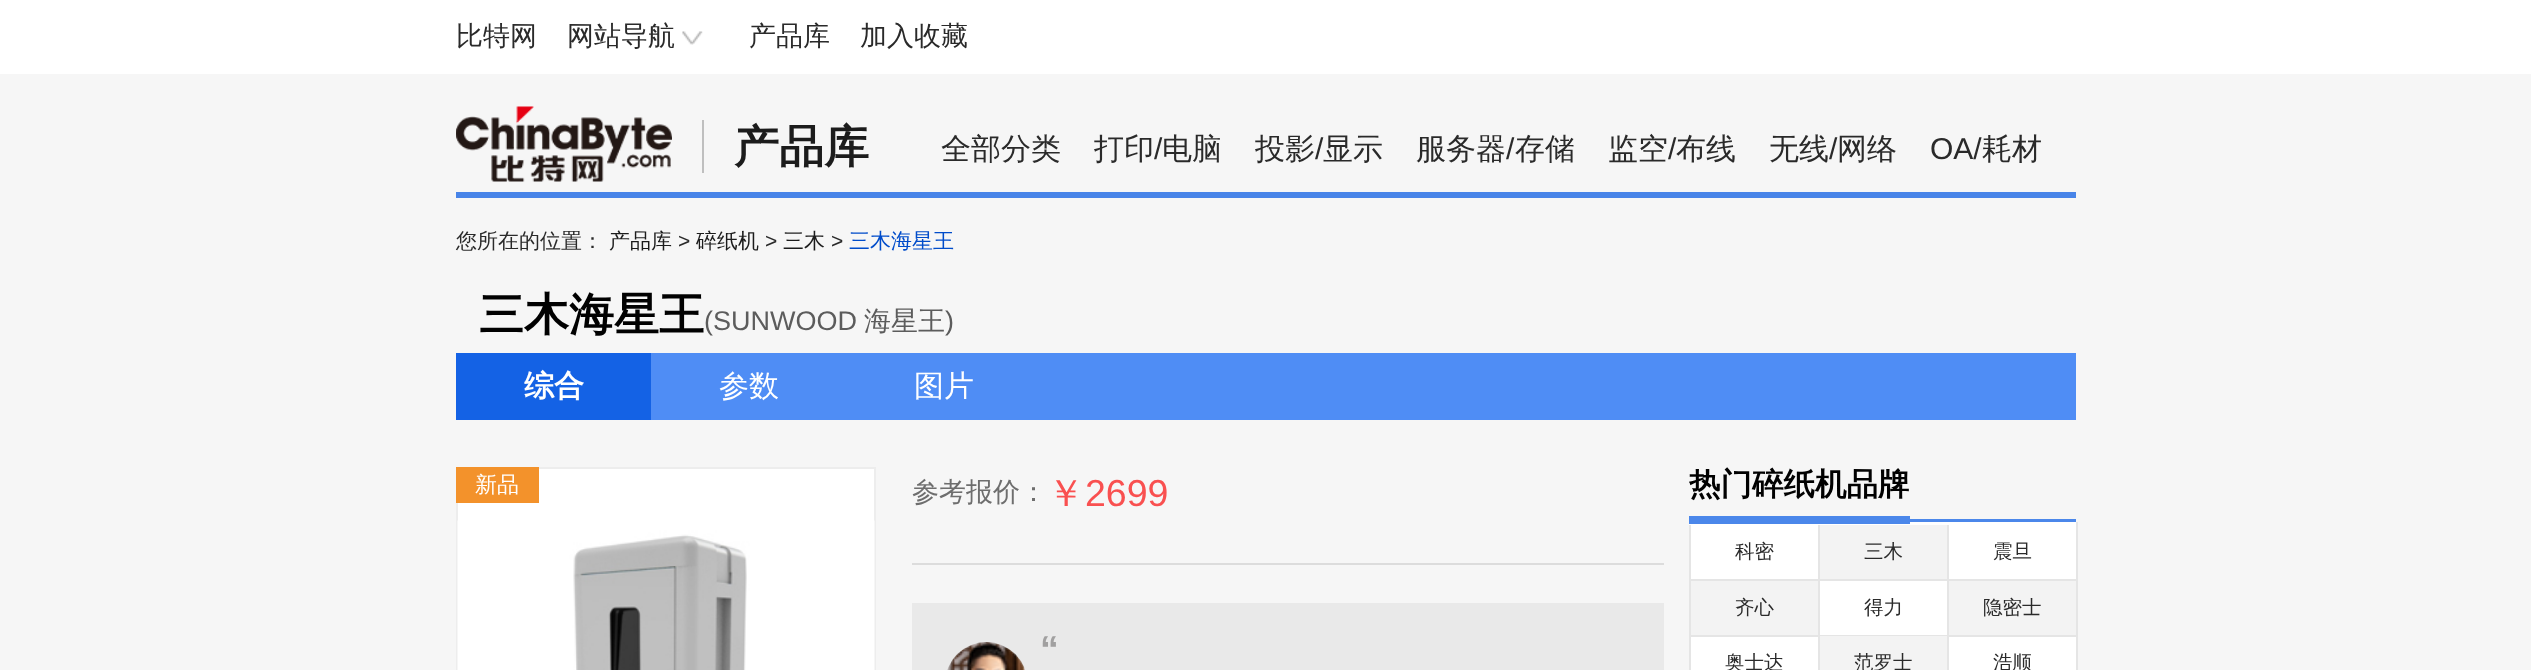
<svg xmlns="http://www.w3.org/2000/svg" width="2531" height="670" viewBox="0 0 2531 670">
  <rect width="100%" height="100%" fill="rgb(246,246,246)"/>
  <rect x="0" y="0" width="2531" height="74" fill="rgb(255,255,255)"/>
  <g font-family="WenQuanYi Zen Hei" font-size="27" font-weight="500" fill="rgb(42,42,42)">
    <text x="456" y="45">比特网</text>
    <text x="567" y="45">网站导航</text>
  </g>
  <image x="682" y="31" width="21" height="14" href="pic1.png"/>
  <g font-family="WenQuanYi Zen Hei" font-size="27" font-weight="500" fill="rgb(42,42,42)">
    <text x="749" y="45">产品库</text>
    <text x="860" y="45">加入收藏</text>
  </g>
  <rect x="456" y="192" width="1620" height="6" fill="rgb(72,132,232)"/>
  <image x="456" y="106" width="216" height="76" href="pic2.png"/>
  <rect x="702" y="120" width="2" height="53" fill="rgb(191,191,191)"/>
  <text x="734" y="162" font-family="WenQuanYi Zen Hei" font-size="45" font-weight="bold" fill="rgb(28,28,28)">产品库</text>
  <g font-family="WenQuanYi Zen Hei" font-size="30" font-weight="500" fill="rgb(42,42,42)">
    <text x="941" y="159">全部分类</text>
    <text x="1094" y="159">打印</text>
  </g>
  <text x="1154" y="159" font-family="Liberation Sans" font-size="30" fill="rgb(42,42,42)">/</text>
  <g font-family="WenQuanYi Zen Hei" font-size="30" font-weight="500" fill="rgb(42,42,42)">
    <text x="1162" y="159">电脑</text>
    <text x="1255" y="159">投影</text>
  </g>
  <text x="1315" y="159" font-family="Liberation Sans" font-size="30" fill="rgb(42,42,42)">/</text>
  <g font-family="WenQuanYi Zen Hei" font-size="30" font-weight="500" fill="rgb(42,42,42)">
    <text x="1323" y="159">显示</text>
    <text x="1416" y="159">服务器</text>
  </g>
  <text x="1506" y="159" font-family="Liberation Sans" font-size="30" fill="rgb(42,42,42)">/</text>
  <g font-family="WenQuanYi Zen Hei" font-size="30" font-weight="500" fill="rgb(42,42,42)">
    <text x="1515" y="159">存储</text>
    <text x="1608" y="159">监空</text>
  </g>
  <text x="1668" y="159" font-family="Liberation Sans" font-size="30" fill="rgb(42,42,42)">/</text>
  <g font-family="WenQuanYi Zen Hei" font-size="30" font-weight="500" fill="rgb(42,42,42)">
    <text x="1676" y="159">布线</text>
    <text x="1769" y="159">无线</text>
  </g>
  <text x="1829" y="159" font-family="Liberation Sans" font-size="30" fill="rgb(42,42,42)">/</text>
  <text x="1837" y="159" font-family="WenQuanYi Zen Hei" font-size="30" font-weight="500" fill="rgb(42,42,42)">网络</text>
  <text x="1930" y="159" font-family="Liberation Sans" font-size="30" fill="rgb(42,42,42)">OA/</text>
  <text x="1982" y="159" font-family="WenQuanYi Zen Hei" font-size="30" font-weight="500" fill="rgb(42,42,42)">耗材</text>
  <text x="456" y="248" font-family="WenQuanYi Zen Hei" font-size="21" font-weight="500" fill="rgb(42,42,42)">您所在的位置：</text>
  <text x="609" y="248" font-family="WenQuanYi Zen Hei" font-size="21" font-weight="500" fill="rgb(28,28,28)">产品库</text>
  <text x="678" y="248" font-family="Liberation Sans" font-size="21" fill="rgb(42,42,42)">&gt;</text>
  <text x="696" y="248" font-family="WenQuanYi Zen Hei" font-size="21" font-weight="500" fill="rgb(28,28,28)">碎纸机</text>
  <text x="765" y="248" font-family="Liberation Sans" font-size="21" fill="rgb(42,42,42)">&gt;</text>
  <text x="783" y="248" font-family="WenQuanYi Zen Hei" font-size="21" font-weight="500" fill="rgb(28,28,28)">三木</text>
  <text x="831" y="248" font-family="Liberation Sans" font-size="21" fill="rgb(42,42,42)">&gt;</text>
  <text x="849" y="248" font-family="WenQuanYi Zen Hei" font-size="21" font-weight="500" fill="rgb(0,76,202)">三木海星王</text>
  <text x="479" y="330" font-family="WenQuanYi Zen Hei" font-size="45" font-weight="bold" fill="rgb(1,1,1)">三木海星王</text>
  <text x="704" y="330" font-family="Liberation Sans" font-size="27" fill="rgb(92,92,92)">(SUNWOOD</text>
  <text x="864" y="330" font-family="WenQuanYi Zen Hei" font-size="27" font-weight="500" fill="rgb(92,92,92)">海星王</text>
  <text x="945" y="330" font-family="Liberation Sans" font-size="27" fill="rgb(92,92,92)">)</text>
  <rect x="651" y="353" width="1425" height="67" fill="rgb(79,141,245)"/>
  <rect x="456" y="353" width="195" height="67" fill="rgb(20,98,229)"/>
  <text x="524" y="396" font-family="WenQuanYi Zen Hei" font-size="30" font-weight="bold" fill="rgb(255,255,255)">综合</text>
  <g font-family="WenQuanYi Zen Hei" font-size="30" font-weight="500" fill="rgb(255,255,255)">
    <text x="719" y="396">参数</text>
    <text x="914" y="396">图片</text>
  </g>
  <rect x="458" y="469" width="416" height="52" fill="rgb(255,255,255)"/>
  <rect x="457" y="468" width="418" height="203" fill="none" stroke="rgb(237,237,237)" stroke-width="2"/>
  <image x="457" y="520" width="418" height="150" href="pic3.png"/>
  <rect x="456" y="467" width="83" height="36" fill="rgb(243,146,43)"/>
  <text x="475" y="492" font-family="WenQuanYi Zen Hei" font-size="22" font-weight="500" fill="rgb(255,255,255)">新品</text>
  <text x="912" y="501" font-family="WenQuanYi Zen Hei" font-size="27" font-weight="500" fill="rgb(110,110,110)">参考报价：</text>
  <text x="1047" y="506" font-family="WenQuanYi Zen Hei" font-size="37.5" font-weight="500" fill="rgb(249,80,80)">￥</text>
  <text x="1085" y="506" font-family="Liberation Sans" font-size="37.5" fill="rgb(249,80,80)">2699</text>
  <rect x="912" y="563" width="752" height="2" fill="rgb(220,220,220)"/>
  <rect x="912" y="603" width="752" height="67" fill="rgb(233,233,233)"/>
  <image x="947" y="642" width="78" height="28" href="pic4.png"/>
  <text x="1040" y="662" font-family="Liberation Sans" font-size="37.5" font-weight="bold" fill="rgb(161,160,160)">“</text>
  <rect x="1910" y="519" width="166" height="3" fill="rgb(75,135,234)"/>
  <text x="1689" y="495" font-family="WenQuanYi Zen Hei" font-size="31.5" font-weight="bold" fill="rgb(1,1,1)">热门碎纸机品牌</text>
  <rect x="1689" y="522" width="387" height="148" fill="rgb(255,255,255)"/>
  <rect x="1689" y="516" width="221" height="8" fill="rgb(75,135,234)"/>
  <rect x="2076" y="522" width="2" height="148" fill="rgb(229,229,229)"/>
  <rect x="1689" y="579" width="387" height="2" fill="rgb(229,229,229)"/>
  <rect x="1689" y="525" width="2" height="56" fill="rgb(229,229,229)"/>
  <text x="1735" y="558" font-family="WenQuanYi Zen Hei" font-size="19.5" font-weight="500" fill="rgb(42,42,42)">科密</text>
  <rect x="1820" y="525" width="127" height="54" fill="rgb(243,243,243)"/>
  <rect x="1818" y="525" width="2" height="56" fill="rgb(229,229,229)"/>
  <text x="1864" y="558" font-family="WenQuanYi Zen Hei" font-size="19.5" font-weight="500" fill="rgb(42,42,42)">三木</text>
  <rect x="1947" y="525" width="2" height="56" fill="rgb(229,229,229)"/>
  <text x="1993" y="558" font-family="WenQuanYi Zen Hei" font-size="19.5" font-weight="500" fill="rgb(42,42,42)">震旦</text>
  <rect x="1691" y="581" width="127" height="54" fill="rgb(243,243,243)"/>
  <rect x="1689" y="635" width="129" height="2" fill="rgb(229,229,229)"/>
  <rect x="1689" y="581" width="2" height="89" fill="rgb(229,229,229)"/>
  <text x="1735" y="614" font-family="WenQuanYi Zen Hei" font-size="19.5" font-weight="500" fill="rgb(42,42,42)">齐心</text>
  <rect x="1818" y="635" width="129" height="1" fill="rgb(229,229,229)"/>
  <rect x="1818" y="581" width="2" height="89" fill="rgb(229,229,229)"/>
  <text x="1864" y="614" font-family="WenQuanYi Zen Hei" font-size="19.5" font-weight="500" fill="rgb(42,42,42)">得力</text>
  <rect x="1949" y="581" width="127" height="54" fill="rgb(243,243,243)"/>
  <rect x="1947" y="635" width="129" height="2" fill="rgb(229,229,229)"/>
  <rect x="1947" y="581" width="2" height="89" fill="rgb(229,229,229)"/>
  <g font-family="WenQuanYi Zen Hei" font-size="19.5" font-weight="500" fill="rgb(42,42,42)">
    <text x="1983" y="614">隐密士</text>
    <text x="1725" y="669">奥士达</text>
  </g>
  <rect x="1820" y="636" width="127" height="34" fill="rgb(243,243,243)"/>
  <g font-family="WenQuanYi Zen Hei" font-size="19.5" font-weight="500" fill="rgb(42,42,42)">
    <text x="1854" y="669">范罗士</text>
    <text x="1993" y="669">浩顺</text>
  </g>
</svg>
